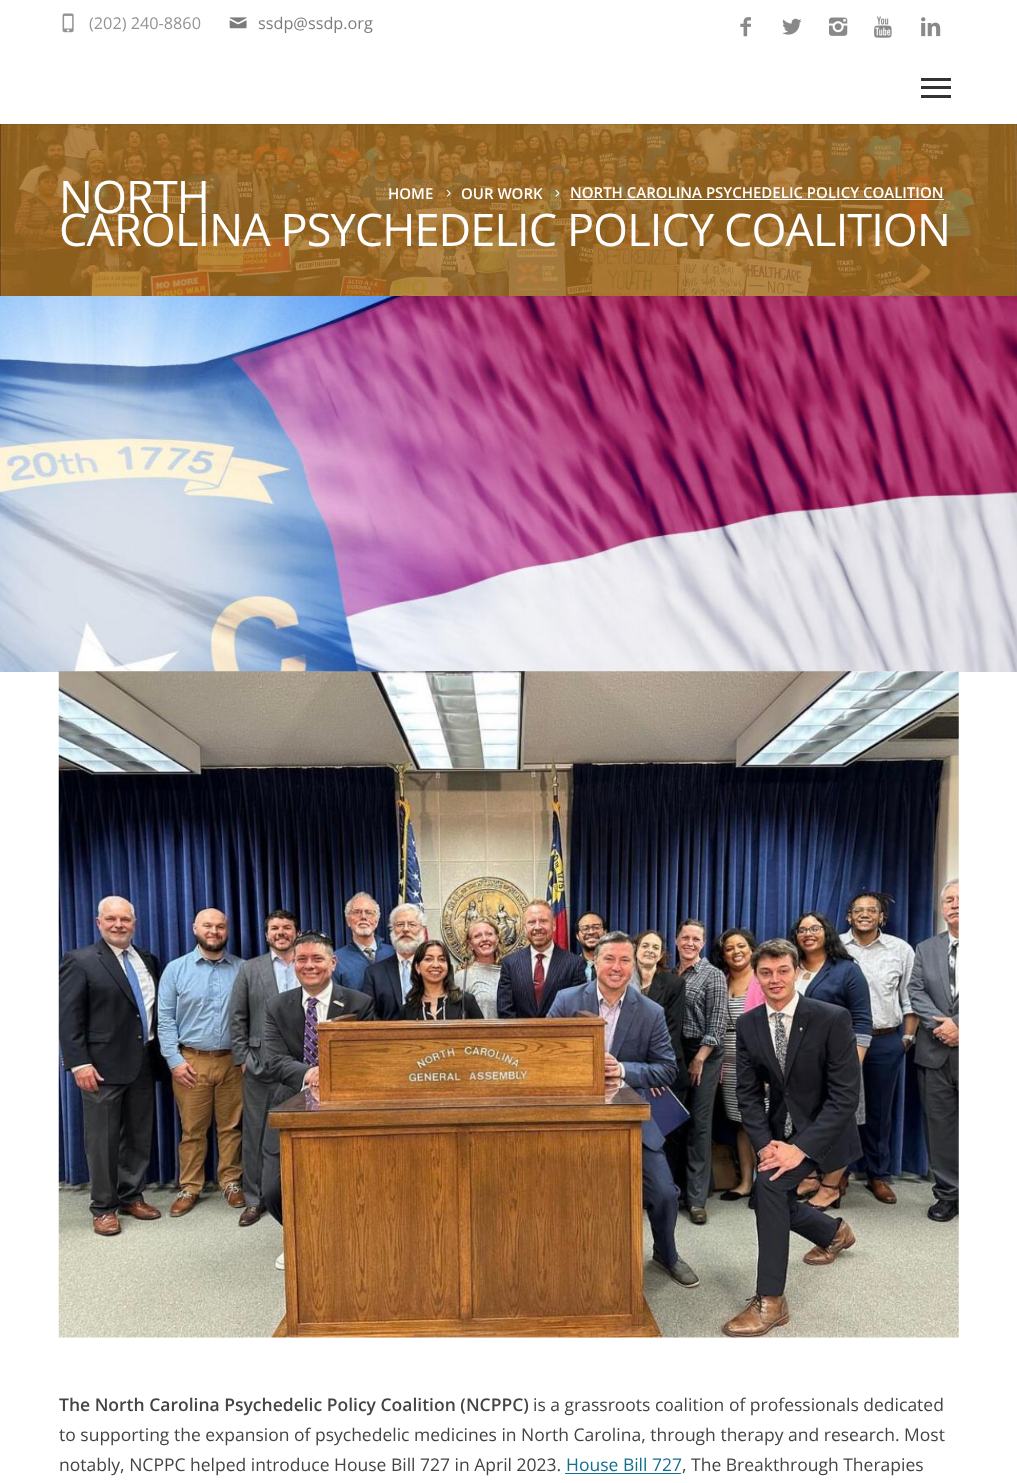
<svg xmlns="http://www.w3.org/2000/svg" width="1017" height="1483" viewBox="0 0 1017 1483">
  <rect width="100%" height="100%" fill="rgb(255,255,255)"/>
  <image x="0" y="124" width="1017" height="172" href="pic8.png"/>
  <rect x="-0.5" y="-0.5" width="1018" height="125" fill="none" stroke="rgba(0,0,0,0.05)"/>
  <image x="62" y="13" width="12" height="20" href="pic1.png"/>
  <text x="89" y="29" font-family="Open Sans" font-size="16.25" fill="rgb(148,148,148)">(202) 240-8860</text>
  <image x="229" y="17" width="18" height="12" href="pic2.png"/>
  <text x="258" y="29" font-family="Open Sans" font-size="16.25" fill="rgb(124,124,124)">ssdp@ssdp.org</text>
  <image x="740" y="17" width="11" height="20" href="pic3.png"/>
  <image x="782" y="18" width="20" height="17" href="pic4.png"/>
  <image x="829" y="17" width="19" height="19" href="pic5.png"/>
  <image x="874" y="16" width="18" height="22" href="pic6.png"/>
  <image x="921" y="17" width="20" height="20" href="pic7.png"/>
  <rect x="921" y="78" width="30" height="3" fill="rgb(51,51,51)"/>
  <rect x="921" y="86" width="30" height="3" fill="rgb(51,51,51)"/>
  <rect x="921" y="95" width="30" height="3" fill="rgb(51,51,51)"/>
  <g font-family="Open Sans" font-size="45" letter-spacing="-0.9" fill="rgb(255,255,255)">
    <text>
      <tspan x="59" y="213">NORTH</tspan>
      <tspan x="59" y="246">CAROLINA PSYCHEDELIC POLICY COALITION</tspan>
    </text>
  </g>
  <text x="388" y="199" font-family="Open Sans" font-size="15" font-weight="600" fill="rgb(255,255,255)">HOME</text>
  <image x="446" y="189" width="5" height="8" href="pic9.png"/>
  <text x="461" y="199" font-family="Open Sans" font-size="15" font-weight="600" fill="rgb(255,255,255)">OUR WORK</text>
  <image x="555" y="189" width="5" height="8" href="pic10.png"/>
  <text x="570" y="198" font-family="Open Sans" font-size="15" font-weight="600" fill="rgb(255,255,255)">NORTH CAROLINA PSYCHEDELIC POLICY COALITION</text>
  <rect x="570" y="199" width="374" height="1" fill="rgb(255,255,255)"/>
  <image x="0" y="296" width="1017" height="376" href="pic11.png"/>
  <image x="58" y="671" width="901" height="667" href="pic12.png"/>
  <text x="59" y="1411" font-family="Open Sans" font-size="17.5" font-weight="600" fill="rgb(68,68,68)">The North Carolina Psychedelic Policy Coalition (NCPPC)</text>
  <g font-family="Open Sans" font-size="17.5" fill="rgb(68,68,68)">
    <text x="533" y="1411">is a grassroots coalition of professionals dedicated</text>
    <text>
      <tspan x="59" y="1441">to supporting the expansion of psychedelic medicines in North Carolina, through therapy and research. Most</tspan>
      <tspan x="59" y="1471">notably, NCPPC helped introduce House Bill 727 in April 2023.</tspan>
    </text>
  </g>
  <text x="566" y="1471" font-family="Open Sans" font-size="17.5" fill="rgb(19,111,141)">House Bill 727</text>
  <rect x="565" y="1473" width="116" height="1" fill="rgb(19,111,141)"/>
  <text x="682" y="1471" font-family="Open Sans" font-size="17.5" fill="rgb(68,68,68)">, The Breakthrough Therapies</text>
</svg>
